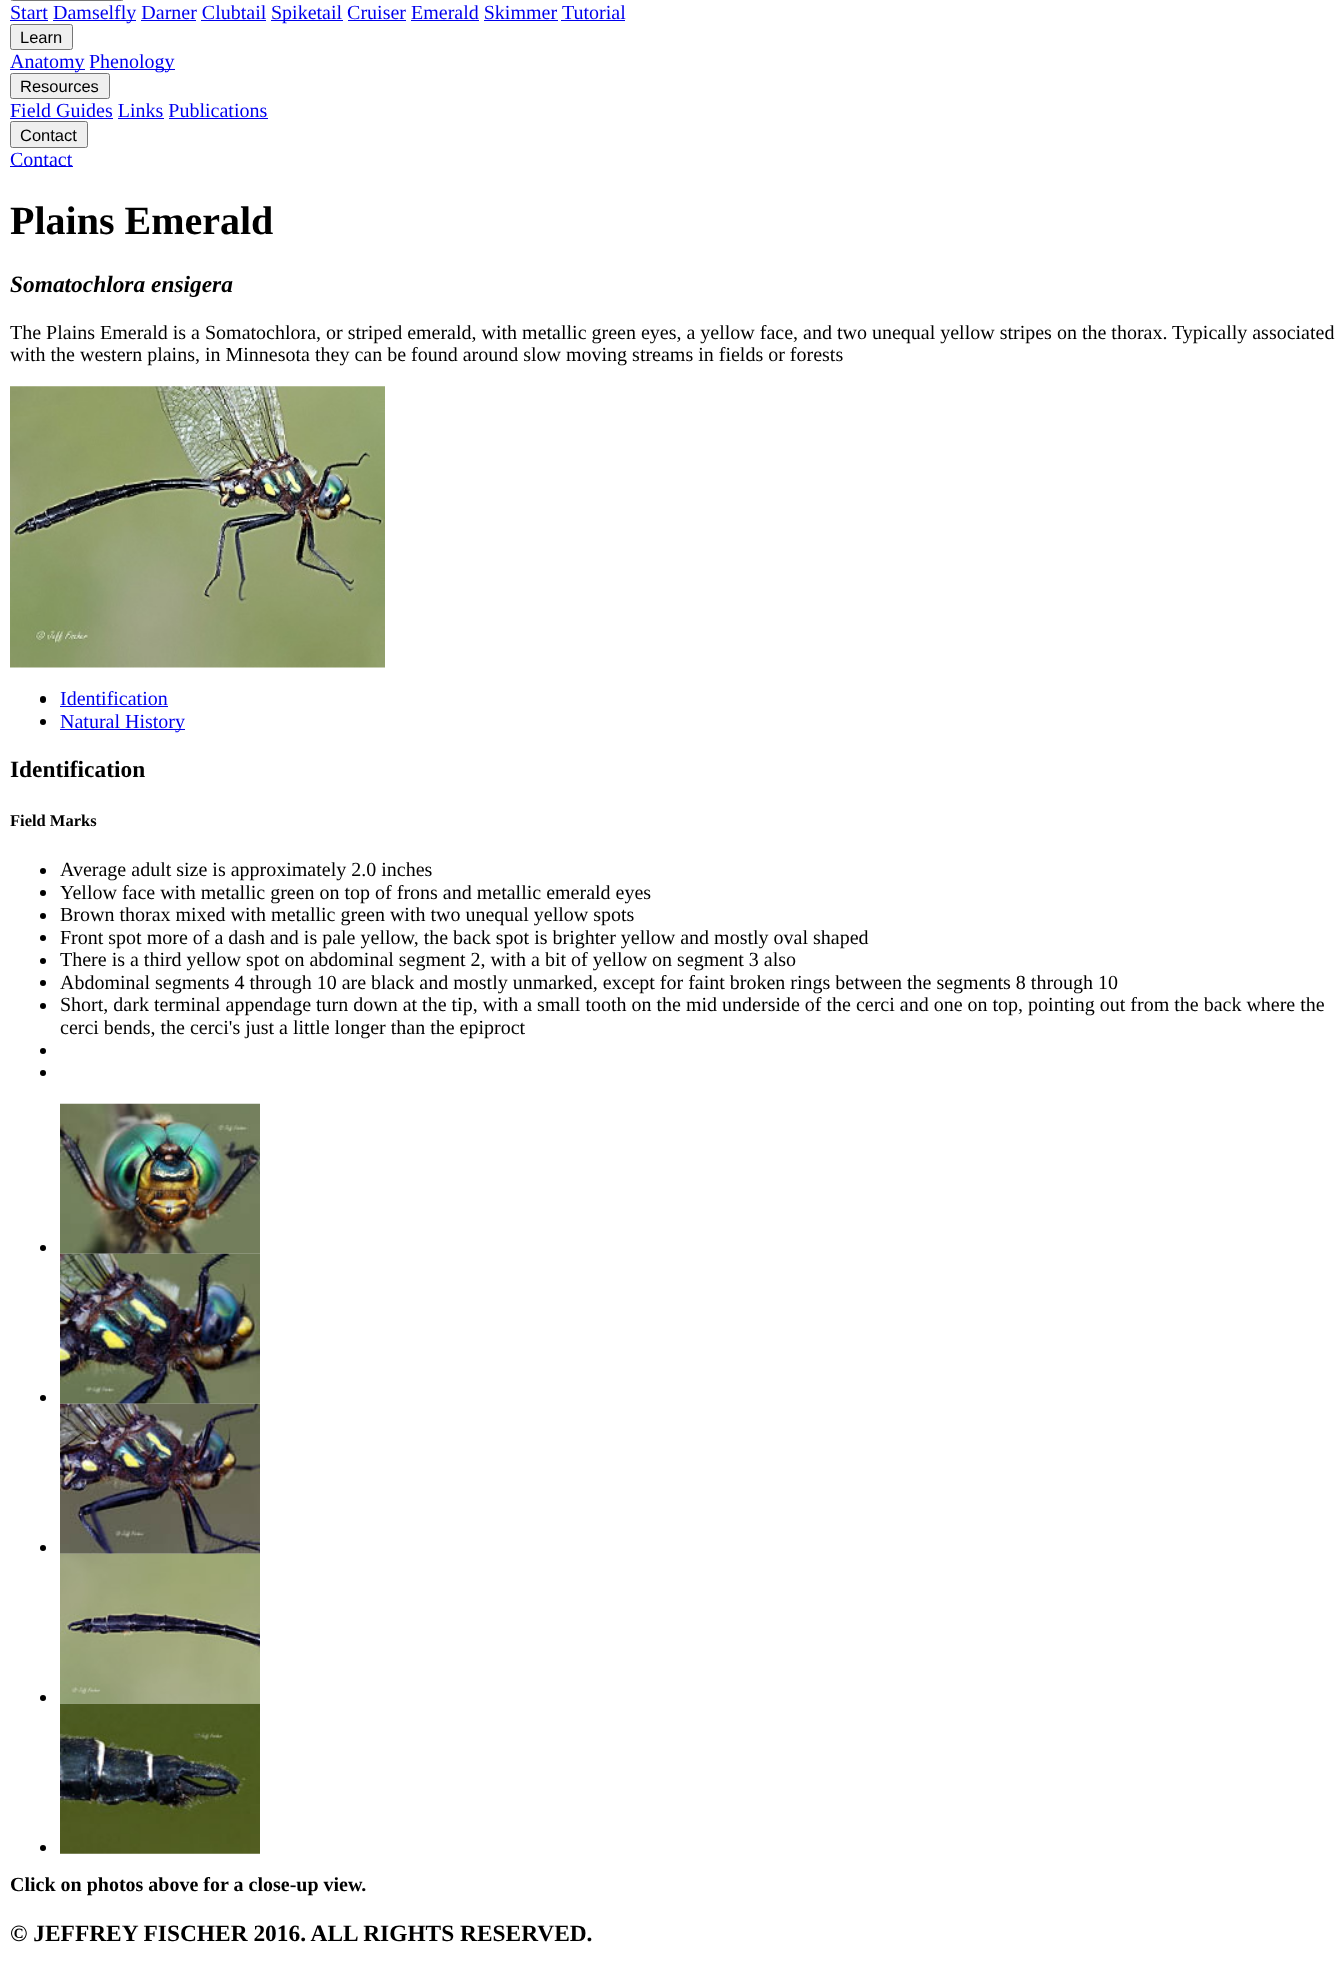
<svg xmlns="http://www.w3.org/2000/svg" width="1344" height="1971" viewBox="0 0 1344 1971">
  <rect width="100%" height="100%" fill="rgb(255,255,255)"/>
  <rect x="10.5" y="-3.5" width="113" height="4" rx="2" fill="none" stroke="rgb(118,118,118)"/>
  <text x="10" y="19" font-family="Liberation Serif" font-size="20" fill="rgb(0,0,238)">Start</text>
  <rect x="10" y="20" width="38" height="1" fill="rgb(0,0,238)"/>
  <rect x="53" y="20" width="83" height="1" fill="rgb(0,0,238)"/>
  <text x="53" y="19" font-family="Liberation Serif" font-size="20" fill="rgb(0,0,238)">Damselfly Darner Clubtail</text>
  <rect x="271" y="20" width="72" height="1" fill="rgb(0,0,238)"/>
  <g font-family="Liberation Serif" font-size="20" fill="rgb(0,0,238)">
    <text x="271" y="19">Spiketail Cruiser Emerald Skimmer</text>
    <text x="562" y="19">Tutorial</text>
  </g>
  <rect x="561" y="20" width="64" height="1" fill="rgb(0,0,238)"/>
  <rect x="141" y="20" width="55" height="1" fill="rgb(0,0,238)"/>
  <rect x="201" y="20" width="65" height="1" fill="rgb(0,0,238)"/>
  <rect x="348" y="20" width="58" height="1" fill="rgb(0,0,238)"/>
  <rect x="411" y="20" width="68" height="1" fill="rgb(0,0,238)"/>
  <rect x="484" y="20" width="74" height="1" fill="rgb(0,0,238)"/>
  <rect x="10.5" y="24.5" width="62" height="25" rx="2" fill="rgb(239,239,239)" stroke="rgb(118,118,118)"/>
  <text x="20" y="43" font-family="Liberation Sans" font-size="16.5" fill="rgb(0,0,0)">Learn</text>
  <rect x="10" y="69" width="75" height="1" fill="rgb(0,0,238)"/>
  <text x="10" y="68" font-family="Liberation Serif" font-size="20" fill="rgb(0,0,238)">Anatomy</text>
  <rect x="90" y="69" width="85" height="1" fill="rgb(0,0,238)"/>
  <text x="89" y="68" font-family="Liberation Serif" font-size="20" fill="rgb(0,0,238)">Phenology</text>
  <rect x="10.5" y="73.5" width="99" height="25" rx="2" fill="rgb(239,239,239)" stroke="rgb(118,118,118)"/>
  <text x="20" y="92" font-family="Liberation Sans" font-size="16.5" fill="rgb(0,0,0)">Resources</text>
  <text x="10" y="117" font-family="Liberation Serif" font-size="20" fill="rgb(0,0,238)">Field Guides Links Publications</text>
  <rect x="10" y="118" width="103" height="1" fill="rgb(0,0,238)"/>
  <rect x="118" y="118" width="46" height="1" fill="rgb(0,0,238)"/>
  <rect x="169" y="118" width="99" height="1" fill="rgb(0,0,238)"/>
  <rect x="10.5" y="121.5" width="77" height="26" rx="2" fill="rgb(239,239,239)" stroke="rgb(118,118,118)"/>
  <text x="20" y="141" font-family="Liberation Sans" font-size="16.5" fill="rgb(0,0,0)">Contact</text>
  <rect x="10" y="166" width="63" height="1" fill="rgb(0,0,238)"/>
  <text x="10" y="166" font-family="Liberation Serif" font-size="20" fill="rgb(0,0,238)">Contact</text>
  <text x="10" y="234" font-family="Liberation Serif" font-size="40" font-weight="bold" fill="rgb(0,0,0)">Plains Emerald</text>
  <text x="10" y="292" font-family="Liberation Serif" font-size="23.4" font-weight="bold" font-style="italic" fill="rgb(0,0,0)">Somatochlora ensigera</text>
  <g font-family="Liberation Serif" font-size="20" fill="rgb(0,0,0)">
    <text x="10" y="339">The Plains Emerald is a Somatochlora, or striped emerald, with metallic green eyes, a yellow face, and two unequal yellow stripes on the thorax.</text>
    <text x="1172" y="339">Typically associated</text>
    <text x="10" y="361">with the western plains, in Minnesota they can be found around slow moving streams in fields or forests</text>
  </g>
  <image x="10" y="386" width="375" height="282" href="pic1.png"/>
  <rect x="40" y="696" width="6" height="7" rx="3" fill="rgb(0,0,0)"/>
  <text x="60" y="705" font-family="Liberation Serif" font-size="20" fill="rgb(0,0,238)">Identification</text>
  <rect x="60" y="706" width="108" height="1" fill="rgb(0,0,238)"/>
  <circle cx="43" cy="722" r="3" fill="rgb(0,0,0)"/>
  <rect x="60" y="729" width="125" height="1" fill="rgb(0,0,238)"/>
  <text x="60" y="728" font-family="Liberation Serif" font-size="20" fill="rgb(0,0,238)">Natural History</text>
  <text x="10" y="777" font-family="Liberation Serif" font-size="23.4" font-weight="bold" fill="rgb(0,0,0)">Identification</text>
  <text x="10" y="826" font-family="Liberation Serif" font-size="16.5" font-weight="bold" fill="rgb(0,0,0)">Field Marks</text>
  <circle cx="43" cy="871" r="3" fill="rgb(0,0,0)"/>
  <text x="60" y="876" font-family="Liberation Serif" font-size="20" fill="rgb(0,0,0)">Average adult size is approximately 2.0 inches</text>
  <circle cx="43" cy="893" r="3" fill="rgb(0,0,0)"/>
  <text x="60" y="899" font-family="Liberation Serif" font-size="20" fill="rgb(0,0,0)">Yellow face with metallic green on top of frons and metallic emerald eyes</text>
  <circle cx="43" cy="916" r="3" fill="rgb(0,0,0)"/>
  <text x="60" y="921" font-family="Liberation Serif" font-size="20" fill="rgb(0,0,0)">Brown thorax mixed with metallic green with two unequal yellow spots</text>
  <circle cx="43" cy="938" r="3" fill="rgb(0,0,0)"/>
  <text x="60" y="944" font-family="Liberation Serif" font-size="20" fill="rgb(0,0,0)">Front spot more of a dash and is pale yellow, the back spot is brighter yellow and mostly oval shaped</text>
  <circle cx="43" cy="961" r="3" fill="rgb(0,0,0)"/>
  <text x="60" y="966" font-family="Liberation Serif" font-size="20" fill="rgb(0,0,0)">There is a third yellow spot on abdominal segment 2, with a bit of yellow on segment 3 also</text>
  <circle cx="43" cy="983" r="3" fill="rgb(0,0,0)"/>
  <text x="60" y="989" font-family="Liberation Serif" font-size="20" fill="rgb(0,0,0)">Abdominal segments 4 through 10 are black and mostly unmarked, except for faint broken rings between the segments 8 through 10</text>
  <circle cx="43" cy="1006" r="3" fill="rgb(0,0,0)"/>
  <g font-family="Liberation Serif" font-size="20" fill="rgb(0,0,0)">
    <text>
      <tspan x="60" y="1011">Short, dark terminal appendage turn down at the tip, with a small tooth on the mid underside of the cerci and one on top, pointing out from the back where the</tspan>
      <tspan x="60" y="1034">cerci bends, the cerci's just a little longer than the epiproct</tspan>
    </text>
  </g>
  <circle cx="43" cy="1051" r="3" fill="rgb(0,0,0)"/>
  <circle cx="43" cy="1073" r="3" fill="rgb(0,0,0)"/>
  <circle cx="43" cy="1248" r="3" fill="rgb(0,0,0)"/>
  <image x="60" y="1103" width="200" height="151" href="pic2.png"/>
  <circle cx="43" cy="1398" r="3" fill="rgb(0,0,0)"/>
  <image x="60" y="1253" width="200" height="151" href="pic3.png"/>
  <circle cx="43" cy="1548" r="3" fill="rgb(0,0,0)"/>
  <image x="60" y="1403" width="200" height="151" href="pic4.png"/>
  <circle cx="43" cy="1698" r="3" fill="rgb(0,0,0)"/>
  <image x="60" y="1553" width="200" height="151" href="pic5.png"/>
  <circle cx="43" cy="1848" r="3" fill="rgb(0,0,0)"/>
  <image x="60" y="1703" width="200" height="151" href="pic6.png"/>
  <text x="10" y="1891" font-family="Liberation Serif" font-size="20" font-weight="bold" fill="rgb(0,0,0)">Click on photos above for a close-up view.</text>
  <text x="10" y="1941" font-family="Liberation Serif" font-size="23.4" font-weight="bold" fill="rgb(0,0,0)">© JEFFREY FISCHER 2016. ALL RIGHTS RESERVED.</text>
</svg>
